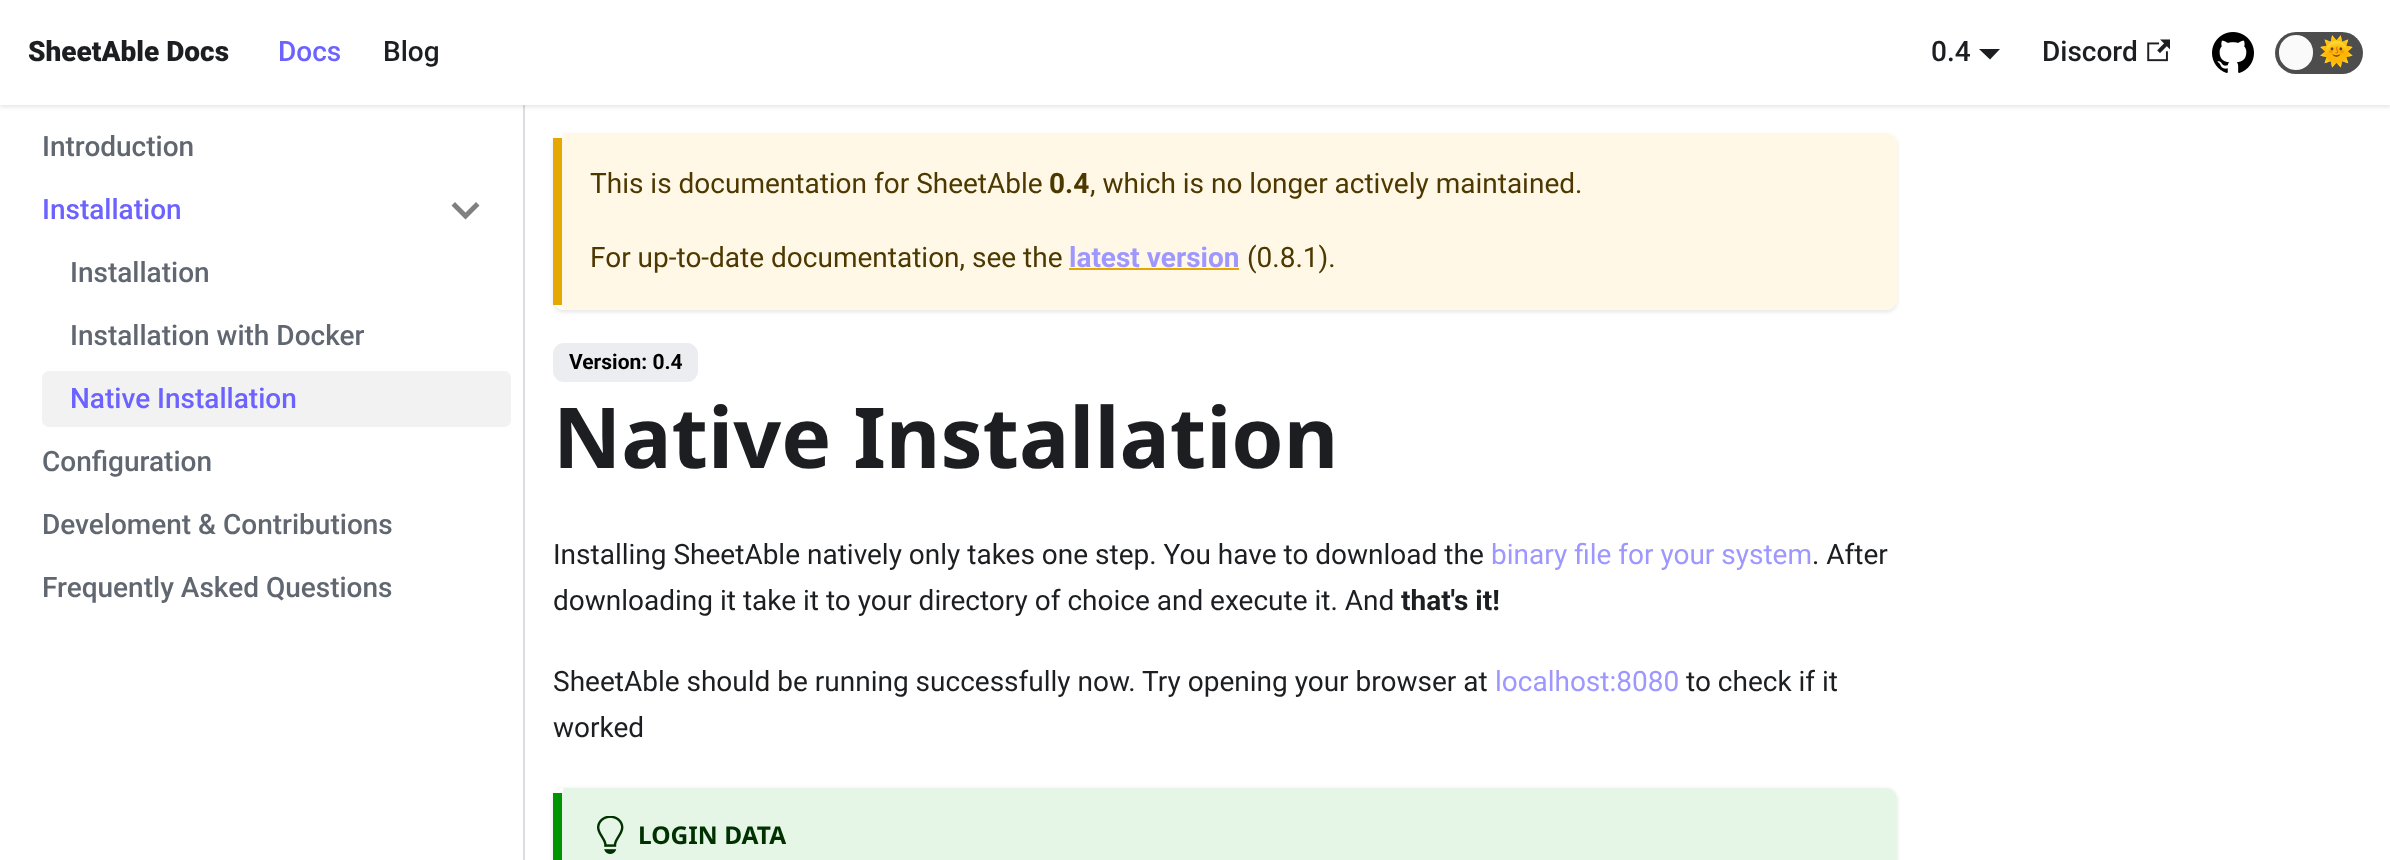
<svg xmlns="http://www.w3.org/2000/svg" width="2390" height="860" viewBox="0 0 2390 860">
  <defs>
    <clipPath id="clip1"><path d="M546 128H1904V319H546ZM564 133H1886C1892 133 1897 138 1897 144V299C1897 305 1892 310 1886 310H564C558 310 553 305 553 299V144C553 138 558 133 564 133Z" clip-rule="evenodd"/></clipPath>
    <clipPath id="clip2"><path d="M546 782H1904V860H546ZM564 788H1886C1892 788 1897 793 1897 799V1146C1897 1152 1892 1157 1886 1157H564C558 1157 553 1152 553 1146V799C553 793 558 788 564 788Z" clip-rule="evenodd"/></clipPath>
  </defs>
  <rect width="100%" height="100%" fill="rgb(255,255,255)"/>
  <rect x="523" y="105" width="2" height="755" fill="rgb(218,221,225)"/>
  <rect x="0" y="2" width="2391" height="105" fill="rgba(0,0,0,0.1)" filter="blur(2px)"/>
  <rect x="0" y="0" width="2390" height="105" fill="rgb(255,255,255)"/>
  <text x="28" y="61" font-family="Roboto" font-size="28" font-weight="900" fill="rgb(28,30,33)">SheetAble Docs</text>
  <text x="278" y="61" font-family="Roboto" font-size="28" font-weight="500" fill="rgb(107,98,255)">Docs</text>
  <g font-family="Roboto" font-size="28" font-weight="500" fill="rgb(28,30,33)">
    <text x="383" y="61">Blog</text>
    <text x="1931" y="61">0.4</text>
  </g>
  <path d="M1979 49H2000L1990 59.5Z" fill="rgb(28,30,33)"/>
  <text x="2042" y="61" font-family="Roboto" font-size="28" font-weight="500" fill="rgb(28,30,33)">Discord</text>
  <image x="2147" y="39" width="23" height="23" href="pic1.png"/>
  <image x="2212" y="32" width="42" height="41" href="pic2.png"/>
  <rect x="2275" y="32" width="88" height="42" rx="21" fill="rgb(77,77,77)"/>
  <rect x="2278" y="34" width="36" height="37" rx="18" fill="rgb(250,250,250)" stroke="rgb(77,77,77)" stroke-width="2"/>
  <text x="2319" y="61" font-family="Noto Color Emoji" font-size="28" fill="rgb(28,30,33)">🌞</text>
  <text x="42" y="156" font-family="Roboto" font-size="28" font-weight="500" fill="rgb(96,103,112)">Introduction</text>
  <text x="42" y="219" font-family="Roboto" font-size="28" font-weight="500" fill="rgb(107,98,255)">Installation</text>
  <path d="M476 202L465.5 212.5L455 202L451.5 205.5L465.5 219.5L479.5 205.5Z" fill="rgb(128,128,128)"/>
  <g font-family="Roboto" font-size="28" font-weight="500" fill="rgb(96,103,112)">
    <text x="70" y="282">Installation</text>
    <text x="70" y="345">Installation with Docker</text>
  </g>
  <rect x="42" y="371" width="469" height="56" rx="7" fill="rgb(242,242,242)"/>
  <text x="70" y="408" font-family="Roboto" font-size="28" font-weight="500" fill="rgb(107,98,255)">Native Installation</text>
  <g font-family="Roboto" font-size="28" font-weight="500" fill="rgb(96,103,112)">
    <text x="42" y="471">Configuration</text>
    <text x="42" y="534">Develoment &amp; Contributions</text>
    <text x="42" y="597">Frequently Asked Questions</text>
  </g>
  <g clip-path="url(#clip1)">
    <rect x="553" y="135" width="1344" height="177" rx="11" fill="rgba(0,0,0,0.1)" filter="blur(2px)"/>
  </g>
  <path d="M564 133H1886C1892 133 1897 138 1897 144V299C1897 305 1892 310 1886 310H564C563 310 562 305 562 299V144C562 138 563 133 564 133Z" fill="rgb(255,248,230)"/>
  <rect x="553" y="138" width="9" height="167" fill="rgb(230,167,0)"/>
  <text x="590" y="193" font-family="Roboto" font-size="28" fill="rgb(77,56,0)">This is documentation for SheetAble</text>
  <text x="1049" y="193" font-family="Roboto" font-size="28" font-weight="bold" fill="rgb(77,56,0)">0.4</text>
  <g font-family="Roboto" font-size="28" fill="rgb(77,56,0)">
    <text x="1090" y="193">, which is no longer actively maintained.</text>
    <text x="590" y="267">For up-to-date documentation, see the</text>
  </g>
  <text x="1069" y="267" font-family="Roboto" font-size="28" font-weight="bold" fill="rgb(157,151,255)">latest version</text>
  <rect x="1069" y="268" width="170" height="2" fill="rgb(230,167,0)"/>
  <text x="1247" y="267" font-family="Roboto" font-size="28" fill="rgb(77,56,0)">(0.8.1).</text>
  <rect x="554" y="344" width="143" height="37" rx="10" fill="rgb(235,237,240)" stroke="rgb(235,237,240)" stroke-width="2"/>
  <text x="569" y="369" font-family="Roboto" font-size="21" font-weight="bold" fill="rgb(0,0,0)">Version: 0.4</text>
  <text x="553" y="468" font-family="Noto Sans" font-size="84" font-weight="bold" fill="rgb(28,30,33)">Native Installation</text>
  <text x="553" y="564" font-family="Roboto" font-size="28" fill="rgb(28,30,33)">Installing SheetAble natively only takes one step. You have to download the</text>
  <text x="1491" y="564" font-family="Roboto" font-size="28" fill="rgb(157,151,255)">binary file for your system</text>
  <g font-family="Roboto" font-size="28" fill="rgb(28,30,33)">
    <text x="1812" y="564">. After</text>
    <text x="553" y="610">downloading it take it to your directory of choice and execute it. And</text>
  </g>
  <text x="1401" y="610" font-family="Roboto" font-size="28" font-weight="bold" fill="rgb(28,30,33)">that's it!</text>
  <text x="553" y="691" font-family="Roboto" font-size="28" fill="rgb(28,30,33)">SheetAble should be running successfully now. Try opening your browser at</text>
  <text x="1495" y="691" font-family="Roboto" font-size="28" fill="rgb(157,151,255)">localhost:8080</text>
  <g font-family="Roboto" font-size="28" fill="rgb(28,30,33)">
    <text x="1686" y="691">to check if it</text>
    <text x="553" y="737">worked</text>
  </g>
  <g clip-path="url(#clip2)">
    <rect x="553" y="789" width="1344" height="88" rx="11" fill="rgba(0,0,0,0.1)" filter="blur(2px)"/>
  </g>
  <path d="M564 788H1886C1892 788 1897 793 1897 799V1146C1897 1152 1892 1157 1886 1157H564C563 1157 562 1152 562 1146V799C562 793 563 788 564 788Z" fill="rgb(230,246,230)"/>
  <rect x="553" y="793" width="9" height="67" fill="rgb(0,148,0)"/>
  <image x="597" y="816" width="27" height="38" href="pic3.png"/>
  <text x="638" y="844" font-family="Noto Sans" font-size="24.5" font-weight="bold" fill="rgb(0,49,0)">LOGIN DATA</text>
</svg>
